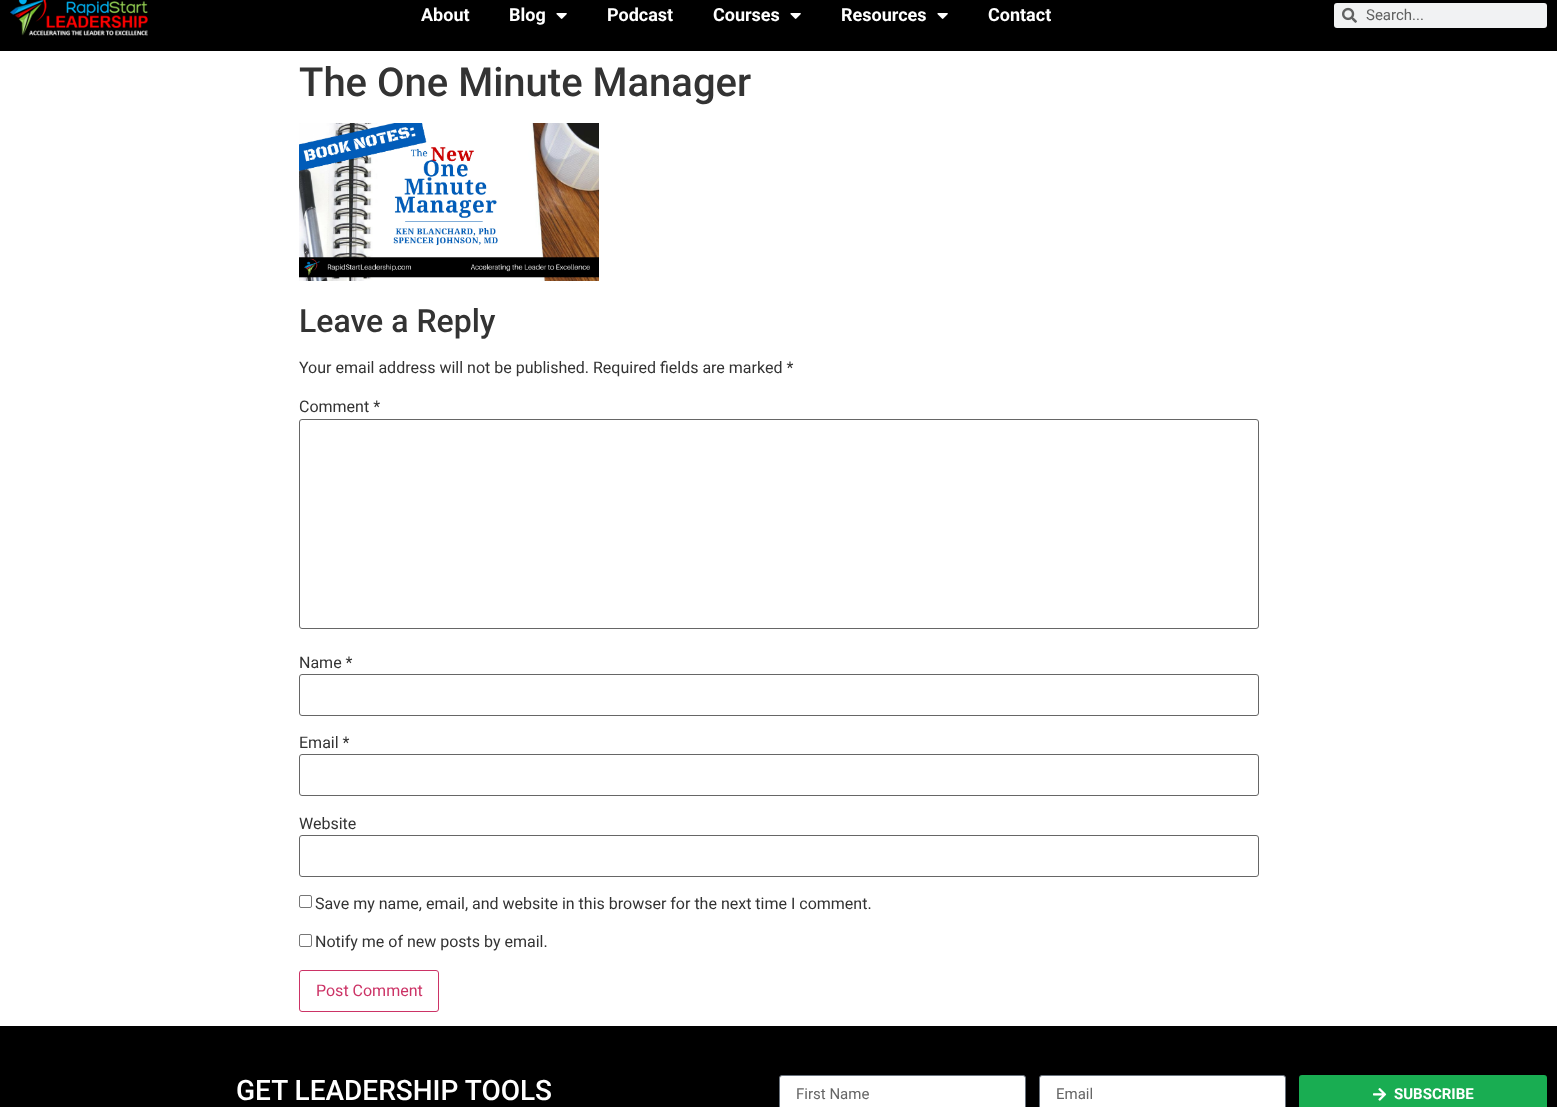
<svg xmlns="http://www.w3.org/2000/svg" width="1557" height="1107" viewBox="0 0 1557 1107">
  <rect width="100%" height="100%" fill="rgb(255,255,255)"/>
  <rect x="0" y="0" width="1557" height="51" fill="rgb(0,0,0)"/>
  <image x="10" y="0" width="138" height="36" href="pic1.png"/>
  <g font-family="Roboto" font-size="18" font-weight="bold" fill="rgb(255,255,255)">
    <text x="421" y="21">About</text>
    <text x="509" y="21">Blog</text>
  </g>
  <image x="556" y="13" width="11" height="6" href="pic2.png"/>
  <g font-family="Roboto" font-size="18" font-weight="bold" fill="rgb(255,255,255)">
    <text x="607" y="21">Podcast</text>
    <text x="713" y="21">Courses</text>
  </g>
  <image x="790" y="13" width="11" height="6" href="pic2.png"/>
  <text x="841" y="21" font-family="Roboto" font-size="18" font-weight="bold" fill="rgb(255,255,255)">Resources</text>
  <image x="937" y="13" width="11" height="6" href="pic2.png"/>
  <text x="988" y="21" font-family="Roboto" font-size="18" font-weight="bold" fill="rgb(255,255,255)">Contact</text>
  <rect x="1334" y="3" width="213" height="25" rx="3" fill="rgb(241,242,243)"/>
  <image x="1342" y="7" width="15" height="16" href="pic3.png"/>
  <text x="1366" y="20" font-family="Roboto" font-size="15" fill="rgb(96,97,97)">Search...</text>
  <text x="299" y="96" font-family="Roboto" font-size="40" font-weight="500" fill="rgb(51,51,51)">The One Minute Manager</text>
  <image x="299" y="123" width="300" height="158" href="pic4.png"/>
  <text x="299" y="332" font-family="Roboto" font-size="32" font-weight="500" fill="rgb(51,51,51)">Leave a Reply</text>
  <g font-family="Roboto" font-size="16" fill="rgb(51,51,51)">
    <text x="299" y="373">Your email address will not be published. Required fields are marked *</text>
    <text x="299" y="412">Comment *</text>
  </g>
  <rect x="299.5" y="419.5" width="959" height="209" rx="2.5" fill="none" stroke="rgb(102,102,102)"/>
  <text x="299" y="668" font-family="Roboto" font-size="16" fill="rgb(51,51,51)">Name *</text>
  <rect x="299.5" y="674.5" width="959" height="41" rx="2.5" fill="none" stroke="rgb(102,102,102)"/>
  <text x="299" y="748" font-family="Roboto" font-size="16" fill="rgb(51,51,51)">Email *</text>
  <rect x="299.5" y="754.5" width="959" height="41" rx="2.5" fill="none" stroke="rgb(102,102,102)"/>
  <text x="299" y="829" font-family="Roboto" font-size="16" fill="rgb(51,51,51)">Website</text>
  <rect x="299.5" y="835.5" width="959" height="41" rx="2.5" fill="none" stroke="rgb(102,102,102)"/>
  <rect x="299.5" y="895.5" width="12" height="12" rx="1.5" fill="none" stroke="rgb(118,118,118)"/>
  <text x="315" y="909" font-family="Roboto" font-size="16" fill="rgb(51,51,51)">Save my name, email, and website in this browser for the next time I comment.</text>
  <rect x="299.5" y="934.5" width="12" height="12" rx="1.5" fill="none" stroke="rgb(118,118,118)"/>
  <text x="315" y="947" font-family="Roboto" font-size="16" fill="rgb(51,51,51)">Notify me of new posts by email.</text>
  <rect x="299.5" y="970.5" width="139" height="41" rx="2.5" fill="none" stroke="rgb(204,51,102)"/>
  <text x="316" y="996" font-family="Roboto" font-size="16" fill="rgb(204,51,102)">Post Comment</text>
  <rect x="0" y="1026" width="1557" height="81" fill="rgb(0,0,0)"/>
  <text x="236" y="1100" font-family="Roboto" font-size="28" font-weight="500" fill="rgb(255,255,255)">GET LEADERSHIP TOOLS</text>
  <rect x="779.5" y="1075.5" width="246" height="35" rx="2.5" fill="rgb(255,255,255)" stroke="rgb(105,114,125)"/>
  <text x="796" y="1099" font-family="Roboto" font-size="15" fill="rgb(102,102,102)">First Name</text>
  <rect x="1039.5" y="1075.5" width="246" height="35" rx="2.5" fill="rgb(255,255,255)" stroke="rgb(105,114,125)"/>
  <text x="1056" y="1099" font-family="Roboto" font-size="15" fill="rgb(102,102,102)">Email</text>
  <rect x="1299" y="1075" width="248" height="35" rx="3" fill="rgb(25,173,82)"/>
  <image x="1373" y="1088" width="14" height="13" href="pic5.png"/>
  <text x="1394" y="1099" font-family="Roboto" font-size="15" font-weight="bold" fill="rgb(255,255,255)">SUBSCRIBE</text>
</svg>
